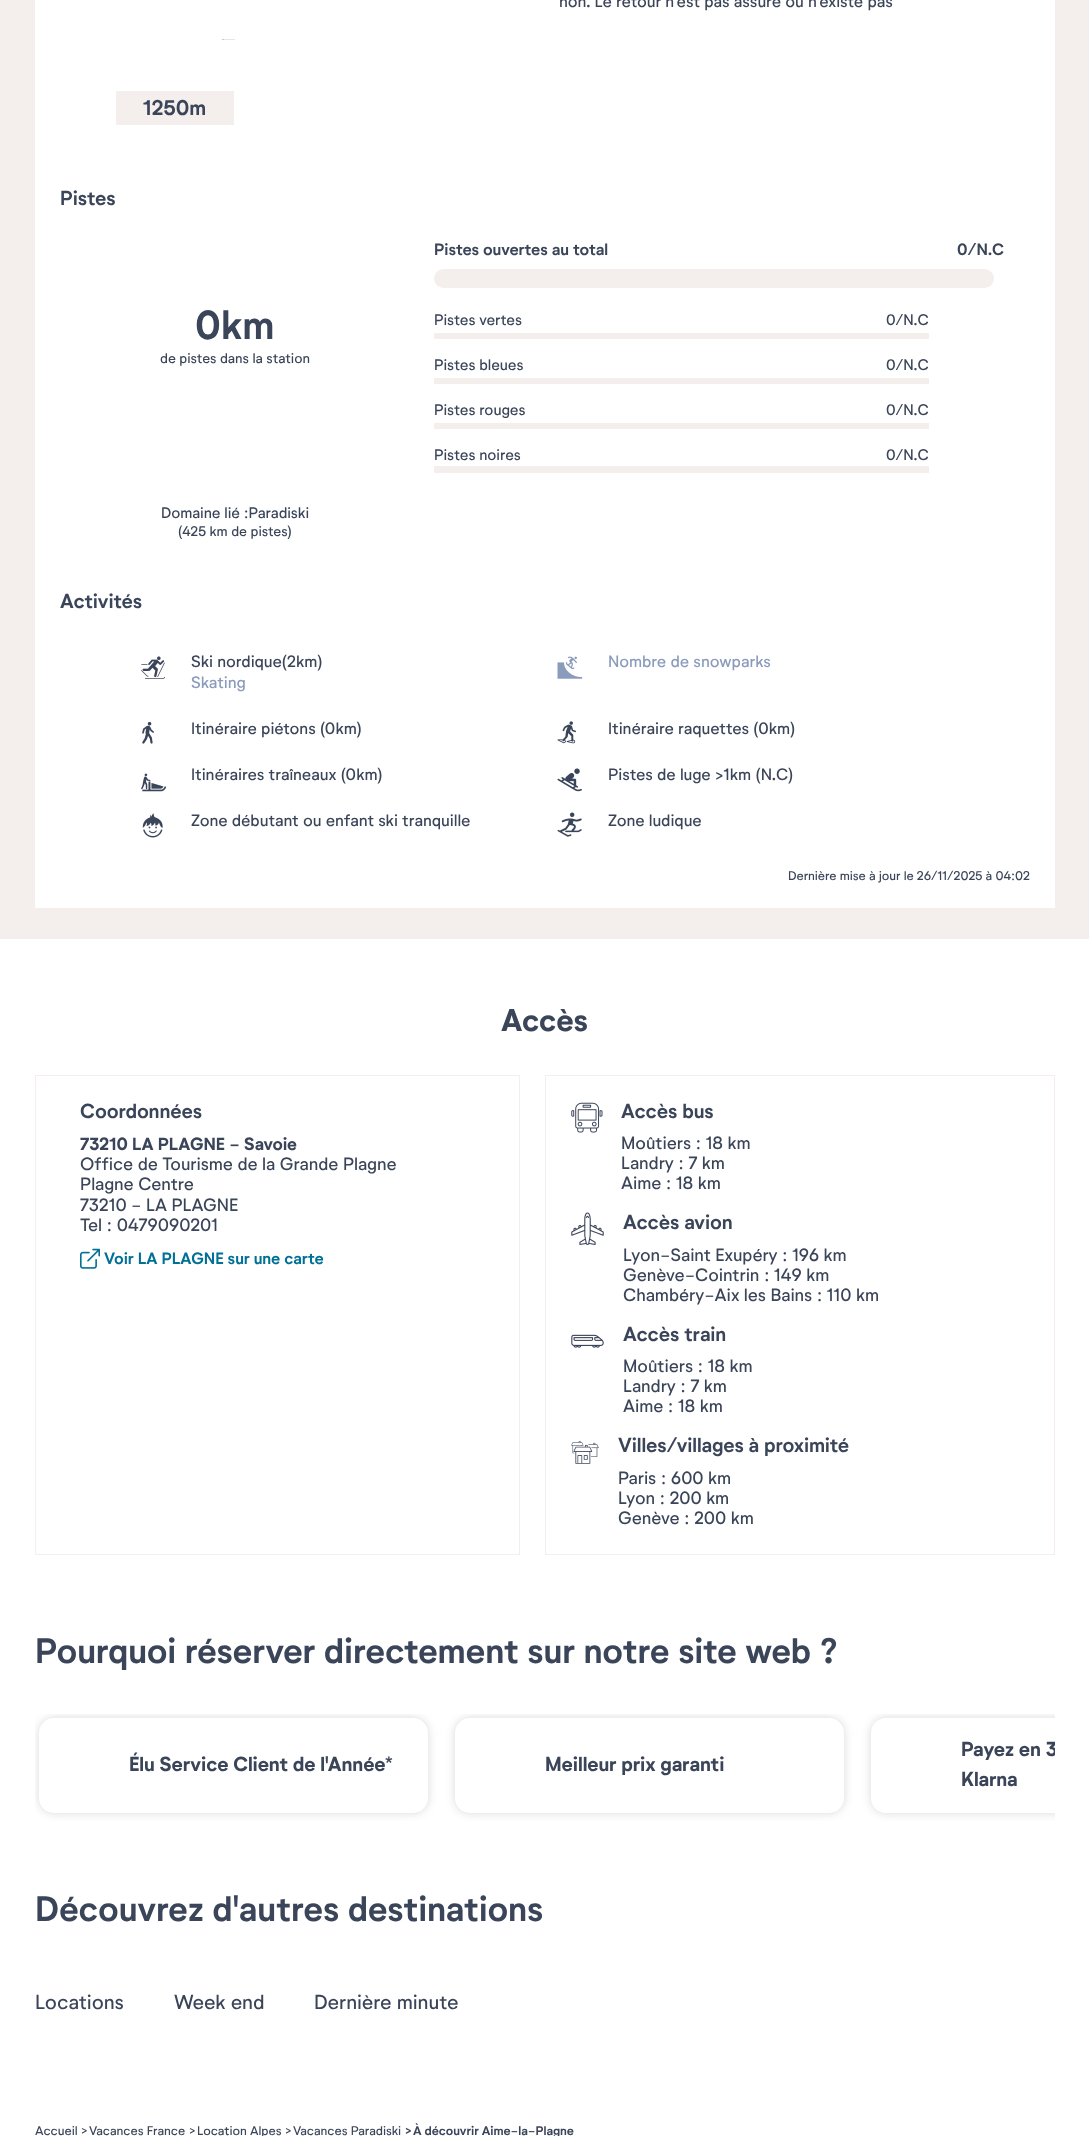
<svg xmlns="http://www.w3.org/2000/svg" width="1089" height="2136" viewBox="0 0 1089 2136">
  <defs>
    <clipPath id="clip1"><rect x="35" y="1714" width="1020" height="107"/></clipPath>
    <clipPath id="clip2"><rect x="35" y="1714" width="1020" height="107"/></clipPath>
  </defs>
  <rect width="100%" height="100%" fill="rgb(255,255,255)"/>
  <rect x="0" y="0" width="1089" height="939" fill="rgb(244,239,236)"/>
  <rect x="35" y="0" width="1020" height="908" fill="rgb(255,255,255)"/>
  <text x="559" y="7" font-family="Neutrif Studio" font-size="16.25" fill="rgb(59,69,89)">non. Le retour n'est pas assuré ou n'existe pas</text>
  <image x="222" y="39" width="13" height="1" href="pic1.png"/>
  <rect x="116" y="91" width="118" height="34" fill="rgb(244,239,236)"/>
  <text x="143" y="115" font-family="Neutrif Studio" font-size="21" font-weight="600" fill="rgb(59,69,89)">1250m</text>
  <text x="60" y="205" font-family="Neutrif Studio" font-size="20" font-weight="600" fill="rgb(59,69,89)">Pistes</text>
  <g font-family="Neutrif Studio" font-size="40" font-weight="600" fill="rgb(59,69,89)">
    <text x="195" y="339">0</text>
    <text x="221" y="339">km</text>
  </g>
  <text x="160" y="363" font-family="Neutrif Studio" font-size="13.75" fill="rgb(59,69,89)">de pistes dans la station</text>
  <text x="161" y="518" font-family="Neutrif Studio" font-size="15" fill="rgb(59,69,89)">Domaine lié :Paradiski</text>
  <text x="178" y="536" font-family="Neutrif Studio" font-size="13.75" fill="rgb(59,69,89)">(425 km de pistes)</text>
  <g font-family="Neutrif Studio" font-size="16.25" font-weight="600" fill="rgb(59,69,89)">
    <text x="434" y="255">Pistes ouvertes au total</text>
    <text x="957" y="255">0/N.C</text>
  </g>
  <rect x="434" y="269" width="560" height="19" rx="9.5" fill="rgb(244,239,236)"/>
  <g font-family="Neutrif Studio" font-size="15" fill="rgb(59,69,89)">
    <text x="434" y="325">Pistes vertes</text>
    <text x="886" y="325">0/N.C</text>
  </g>
  <rect x="434" y="333" width="495" height="6" fill="rgb(244,239,236)"/>
  <g font-family="Neutrif Studio" font-size="15" fill="rgb(59,69,89)">
    <text x="434" y="370">Pistes bleues</text>
    <text x="886" y="370">0/N.C</text>
  </g>
  <rect x="434" y="378" width="495" height="6" fill="rgb(244,239,236)"/>
  <g font-family="Neutrif Studio" font-size="15" fill="rgb(59,69,89)">
    <text x="434" y="415">Pistes rouges</text>
    <text x="886" y="415">0/N.C</text>
  </g>
  <rect x="434" y="423" width="495" height="6" fill="rgb(244,239,236)"/>
  <g font-family="Neutrif Studio" font-size="15" fill="rgb(59,69,89)">
    <text x="434" y="460">Pistes noires</text>
    <text x="886" y="460">0/N.C</text>
  </g>
  <rect x="434" y="466" width="495" height="7" fill="rgb(244,239,236)"/>
  <text x="60" y="608" font-family="Neutrif Studio" font-size="20" font-weight="600" fill="rgb(59,69,89)">Activités</text>
  <image x="141" y="656" width="24" height="23" href="pic2.png"/>
  <text x="191" y="667" font-family="Neutrif Studio" font-size="16.25" fill="rgb(59,69,89)">Ski nordique(2km)</text>
  <text x="191" y="688" font-family="Neutrif Studio" font-size="16.25" fill="rgb(139,155,188)">Skating</text>
  <image x="557" y="656" width="26" height="23" href="pic3.png"/>
  <text x="608" y="667" font-family="Neutrif Studio" font-size="16.25" fill="rgb(139,155,188)">Nombre de snowparks</text>
  <image x="142" y="721" width="12" height="23" href="pic4.png"/>
  <text x="191" y="734" font-family="Neutrif Studio" font-size="16.25" fill="rgb(59,69,89)">Itinéraire piétons (0km)</text>
  <image x="557" y="721" width="19" height="23" href="pic5.png"/>
  <text x="608" y="734" font-family="Neutrif Studio" font-size="16.25" fill="rgb(59,69,89)">Itinéraire raquettes (0km)</text>
  <image x="141" y="773" width="26" height="19" href="pic6.png"/>
  <text x="191" y="780" font-family="Neutrif Studio" font-size="16.25" fill="rgb(59,69,89)">Itinéraires traîneaux (0km)</text>
  <image x="557" y="768" width="25" height="24" href="pic7.png"/>
  <text x="608" y="780" font-family="Neutrif Studio" font-size="16.25" fill="rgb(59,69,89)">Pistes de luge &gt;1km (N.C)</text>
  <image x="142" y="813" width="21" height="25" href="pic8.png"/>
  <text x="191" y="826" font-family="Neutrif Studio" font-size="16.25" fill="rgb(59,69,89)">Zone débutant ou enfant ski tranquille</text>
  <image x="557" y="812" width="25" height="25" href="pic9.png"/>
  <text x="608" y="826" font-family="Neutrif Studio" font-size="16.25" fill="rgb(59,69,89)">Zone ludique</text>
  <text x="788" y="880" font-family="Neutrif Studio" font-size="12.5" fill="rgb(59,69,89)">Dernière mise à jour le 26/11/2025 à 04:02</text>
  <text x="501" y="1031" font-family="Neutrif Studio" font-size="31" font-weight="bold" fill="rgb(59,69,89)">Accès</text>
  <rect x="35.5" y="1075.5" width="484" height="479" fill="none" stroke="rgb(244,239,236)"/>
  <text x="80" y="1118" font-family="Neutrif Studio" font-size="20" font-weight="600" fill="rgb(59,69,89)">Coordonnées</text>
  <text x="80" y="1150" font-family="Neutrif Studio" font-size="17.5" font-weight="bold" fill="rgb(59,69,89)">73210 LA PLAGNE - Savoie</text>
  <g font-family="Neutrif Studio" font-size="17.5" fill="rgb(59,69,89)">
    <text>
      <tspan x="80" y="1170">Office de Tourisme de la Grande Plagne</tspan>
      <tspan x="80" y="1190">Plagne Centre</tspan>
      <tspan x="80" y="1211">73210 - LA PLAGNE</tspan>
      <tspan x="80" y="1231">Tel : 0479090201</tspan>
    </text>
  </g>
  <image x="80" y="1248" width="20" height="21" href="pic10.png"/>
  <text x="104" y="1264" font-family="Neutrif Studio" font-size="16.25" font-weight="600" fill="rgb(1,112,150)">Voir LA PLAGNE sur une carte</text>
  <rect x="545.5" y="1075.5" width="509" height="479" fill="none" stroke="rgb(244,239,236)"/>
  <image x="571" y="1102" width="32" height="31" href="pic11.png"/>
  <text x="621" y="1118" font-family="Neutrif Studio" font-size="20" font-weight="600" fill="rgb(59,69,89)">Accès bus</text>
  <g font-family="Neutrif Studio" font-size="17.5" fill="rgb(59,69,89)">
    <text>
      <tspan x="621" y="1149">Moûtiers : 18 km</tspan>
      <tspan x="621" y="1169">Landry : 7 km</tspan>
      <tspan x="621" y="1189">Aime : 18 km</tspan>
    </text>
  </g>
  <image x="571" y="1212" width="33" height="33" href="pic12.png"/>
  <text x="623" y="1229" font-family="Neutrif Studio" font-size="20" font-weight="600" fill="rgb(59,69,89)">Accès avion</text>
  <g font-family="Neutrif Studio" font-size="17.5" fill="rgb(59,69,89)">
    <text>
      <tspan x="623" y="1261">Lyon-Saint Exupéry : 196 km</tspan>
      <tspan x="623" y="1281">Genève-Cointrin : 149 km</tspan>
      <tspan x="623" y="1301">Chambéry-Aix les Bains : 110 km</tspan>
    </text>
  </g>
  <image x="571" y="1334" width="33" height="14" href="pic13.png"/>
  <text x="623" y="1341" font-family="Neutrif Studio" font-size="20" font-weight="600" fill="rgb(59,69,89)">Accès train</text>
  <g font-family="Neutrif Studio" font-size="17.5" fill="rgb(59,69,89)">
    <text>
      <tspan x="623" y="1372">Moûtiers : 18 km</tspan>
      <tspan x="623" y="1392">Landry : 7 km</tspan>
      <tspan x="623" y="1412">Aime : 18 km</tspan>
    </text>
  </g>
  <image x="571" y="1441" width="28" height="23" href="pic14.png"/>
  <text x="618" y="1452" font-family="Neutrif Studio" font-size="20" font-weight="600" fill="rgb(59,69,89)">Villes/villages à proximité</text>
  <g font-family="Neutrif Studio" font-size="17.5" fill="rgb(59,69,89)">
    <text>
      <tspan x="618" y="1484">Paris : 600 km</tspan>
      <tspan x="618" y="1504">Lyon : 200 km</tspan>
      <tspan x="618" y="1524">Genève : 200 km</tspan>
    </text>
  </g>
  <text x="35" y="1663" font-family="Neutrif Studio" font-size="35" font-weight="600" fill="rgb(59,69,89)">Pourquoi réserver directement sur notre site web ?</text>
  <g clip-path="url(#clip1)">
    <rect x="39" y="1718" width="389" height="95" rx="15" fill="rgba(47,55,72,0.19)" filter="blur(5px)"/>
  </g>
  <rect x="39" y="1718" width="389" height="95" rx="15" fill="rgb(255,255,255)"/>
  <text x="129" y="1771" font-family="Neutrif Studio" font-size="20" font-weight="bold" fill="rgb(59,69,89)">Élu Service Client de l'Année*</text>
  <g clip-path="url(#clip1)">
    <rect x="455" y="1718" width="389" height="95" rx="15" fill="rgba(47,55,72,0.19)" filter="blur(5px)"/>
  </g>
  <rect x="455" y="1718" width="389" height="95" rx="15" fill="rgb(255,255,255)"/>
  <text x="545" y="1771" font-family="Neutrif Studio" font-size="20" font-weight="bold" fill="rgb(59,69,89)">Meilleur prix garanti</text>
  <g clip-path="url(#clip1)">
    <rect x="871" y="1718" width="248" height="95" rx="15" fill="rgba(47,55,72,0.19)" filter="blur(5px)"/>
  </g>
  <path d="M886 1718H1055V1813H886C877.5 1813 871 1806.5 871 1798V1733C871 1724.5 877.5 1718 886 1718Z" fill="rgb(255,255,255)"/>
  <g clip-path="url(#clip2)">
    <text x="961" y="1756" font-family="Neutrif Studio" font-size="20" font-weight="bold" fill="rgb(59,69,89)">Payez en 3</text>
  </g>
  <text x="961" y="1786" font-family="Neutrif Studio" font-size="20" font-weight="bold" fill="rgb(59,69,89)">Klarna</text>
  <text x="35" y="1921" font-family="Neutrif Studio" font-size="35" font-weight="600" fill="rgb(59,69,89)">Découvrez d'autres destinations</text>
  <g font-family="Neutrif Studio" font-size="20" fill="rgb(59,69,89)">
    <text x="35" y="2009">Locations</text>
    <text x="174" y="2009">Week end</text>
    <text x="314" y="2009">Dernière minute</text>
  </g>
  <g font-family="Neutrif Studio" font-size="12.5" fill="rgb(59,69,89)">
    <text x="35" y="2135">Accueil</text>
    <text x="81" y="2134">&gt;</text>
    <text x="89" y="2135">Vacances France</text>
    <text x="189" y="2134">&gt;</text>
    <text x="197" y="2135">Location Alpes</text>
    <text x="285" y="2134">&gt;</text>
    <text x="293" y="2135">Vacances Paradiski</text>
  </g>
  <g font-family="Neutrif Studio" font-size="12.5" font-weight="600" fill="rgb(59,69,89)">
    <text x="405" y="2134">&gt;</text>
    <text x="413" y="2135">À découvrir Aime-la-Plagne</text>
  </g>
</svg>
